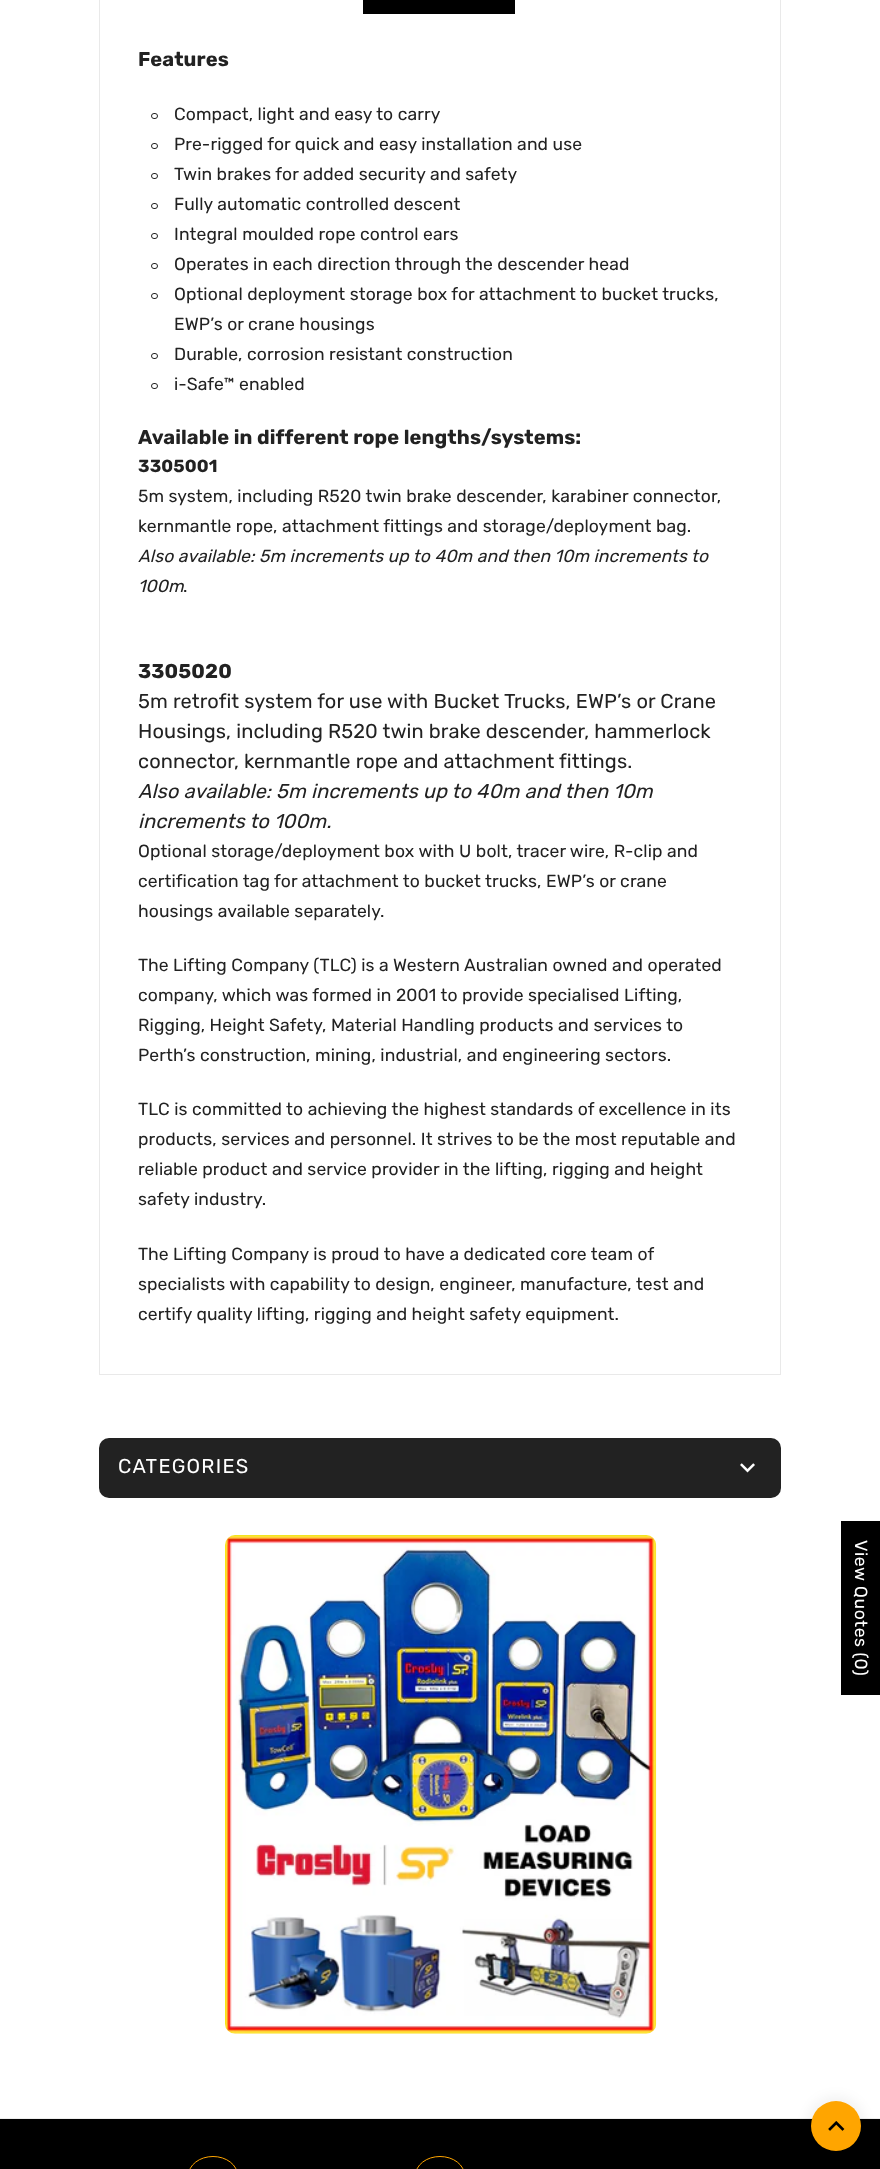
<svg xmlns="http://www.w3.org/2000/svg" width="880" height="2169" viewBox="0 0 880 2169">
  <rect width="100%" height="100%" fill="rgb(255,255,255)"/>
  <rect x="99.5" y="-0.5" width="681" height="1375" fill="none" stroke="rgb(233,233,233)"/>
  <rect x="363" y="0" width="152" height="14" fill="rgb(0,0,0)"/>
  <text x="138" y="66" font-family="Rubik" font-size="20" font-weight="bold" letter-spacing="0.12" fill="rgb(34,34,34)">Features</text>
  <rect x="151.5" y="113.5" width="6" height="5" rx="2.5" fill="none" stroke="rgb(34,34,34)"/>
  <text x="174" y="120" font-family="Rubik" font-size="17.5" letter-spacing="0.12" fill="rgb(34,34,34)">Compact, light and easy to carry</text>
  <rect x="151.5" y="143.5" width="6" height="5" rx="2.5" fill="none" stroke="rgb(34,34,34)"/>
  <text x="174" y="150" font-family="Rubik" font-size="17.5" letter-spacing="0.12" fill="rgb(34,34,34)">Pre-rigged for quick and easy installation and use</text>
  <rect x="151.5" y="173.5" width="6" height="5" rx="2.5" fill="none" stroke="rgb(34,34,34)"/>
  <text x="174" y="180" font-family="Rubik" font-size="17.5" letter-spacing="0.12" fill="rgb(34,34,34)">Twin brakes for added security and safety</text>
  <rect x="151.5" y="203.5" width="6" height="5" rx="2.5" fill="none" stroke="rgb(34,34,34)"/>
  <text x="174" y="210" font-family="Rubik" font-size="17.5" letter-spacing="0.12" fill="rgb(34,34,34)">Fully automatic controlled descent</text>
  <rect x="151.5" y="233.5" width="6" height="5" rx="2.5" fill="none" stroke="rgb(34,34,34)"/>
  <text x="174" y="240" font-family="Rubik" font-size="17.5" letter-spacing="0.12" fill="rgb(34,34,34)">Integral moulded rope control ears</text>
  <rect x="151.5" y="263.5" width="6" height="5" rx="2.5" fill="none" stroke="rgb(34,34,34)"/>
  <text x="174" y="270" font-family="Rubik" font-size="17.5" letter-spacing="0.12" fill="rgb(34,34,34)">Operates in each direction through the descender head</text>
  <rect x="151.5" y="293.5" width="6" height="5" rx="2.5" fill="none" stroke="rgb(34,34,34)"/>
  <g font-family="Rubik" font-size="17.5" letter-spacing="0.12" fill="rgb(34,34,34)">
    <text>
      <tspan x="174" y="300">Optional deployment storage box for attachment to bucket trucks,</tspan>
      <tspan x="174" y="330">EWP’s or crane housings</tspan>
    </text>
  </g>
  <rect x="151.5" y="353.5" width="6" height="5" rx="2.5" fill="none" stroke="rgb(34,34,34)"/>
  <text x="174" y="360" font-family="Rubik" font-size="17.5" letter-spacing="0.12" fill="rgb(34,34,34)">Durable, corrosion resistant construction</text>
  <rect x="151.5" y="383.5" width="6" height="5" rx="2.5" fill="none" stroke="rgb(34,34,34)"/>
  <text x="174" y="390" font-family="Rubik" font-size="17.5" letter-spacing="0.12" fill="rgb(34,34,34)">i-Safe™ enabled</text>
  <text x="138" y="444" font-family="Rubik" font-size="20" font-weight="bold" letter-spacing="0.12" fill="rgb(34,34,34)">Available in different rope lengths/systems:</text>
  <text x="138" y="472" font-family="Rubik" font-size="17.5" font-weight="bold" letter-spacing="0.12" fill="rgb(34,34,34)">3305001</text>
  <g font-family="Rubik" font-size="17.5" letter-spacing="0.12" fill="rgb(34,34,34)">
    <text>
      <tspan x="138" y="502">5m system, including R520 twin brake descender, karabiner connector,</tspan>
      <tspan x="138" y="532">kernmantle rope, attachment fittings and storage/deployment bag.</tspan>
    </text>
  </g>
  <g font-family="Rubik" font-size="17.5" font-style="italic" letter-spacing="0.12" fill="rgb(34,34,34)">
    <text>
      <tspan x="138" y="562">Also available: 5m increments up to 40m and then 10m increments to</tspan>
      <tspan x="138" y="592">100m</tspan>
    </text>
  </g>
  <text x="183" y="592" font-family="Rubik" font-size="17.5" letter-spacing="0.12" fill="rgb(34,34,34)">.</text>
  <text x="138" y="678" font-family="Rubik" font-size="20" font-weight="bold" letter-spacing="0.12" fill="rgb(34,34,34)">3305020</text>
  <g font-family="Rubik" font-size="20" letter-spacing="0.12" fill="rgb(34,34,34)">
    <text>
      <tspan x="138" y="708">5m retrofit system for use with Bucket Trucks, EWP’s or Crane</tspan>
      <tspan x="138" y="738">Housings, including R520 twin brake descender, hammerlock</tspan>
      <tspan x="138" y="768">connector, kernmantle rope and attachment fittings.</tspan>
    </text>
  </g>
  <g font-family="Rubik" font-size="20" font-style="italic" letter-spacing="0.12" fill="rgb(34,34,34)">
    <text>
      <tspan x="138" y="798">Also available: 5m increments up to 40m and then 10m</tspan>
      <tspan x="138" y="828">increments to 100m.</tspan>
    </text>
  </g>
  <g font-family="Rubik" font-size="17.5" letter-spacing="0.12" fill="rgb(34,34,34)">
    <text>
      <tspan x="138" y="857">Optional storage/deployment box with U bolt, tracer wire, R-clip and</tspan>
      <tspan x="138" y="887">certification tag for attachment to bucket trucks, EWP’s or crane</tspan>
      <tspan x="138" y="917">housings available separately.</tspan>
    </text>
    <text>
      <tspan x="138" y="971">The Lifting Company (TLC) is a Western Australian owned and operated</tspan>
      <tspan x="138" y="1001">company, which was formed in 2001 to provide specialised Lifting,</tspan>
      <tspan x="138" y="1031">Rigging, Height Safety, Material Handling products and services to</tspan>
      <tspan x="138" y="1061">Perth’s construction, mining, industrial, and engineering sectors.</tspan>
    </text>
    <text>
      <tspan x="138" y="1115">TLC is committed to achieving the highest standards of excellence in its</tspan>
      <tspan x="138" y="1145">products, services and personnel. It strives to be the most reputable and</tspan>
      <tspan x="138" y="1175">reliable product and service provider in the lifting, rigging and height</tspan>
      <tspan x="138" y="1205">safety industry.</tspan>
    </text>
    <text>
      <tspan x="138" y="1260">The Lifting Company is proud to have a dedicated core team of</tspan>
      <tspan x="138" y="1290">specialists with capability to design, engineer, manufacture, test and</tspan>
      <tspan x="138" y="1320">certify quality lifting, rigging and height safety equipment.</tspan>
    </text>
  </g>
  <rect x="99" y="1438" width="682" height="60" rx="10" fill="rgb(34,34,34)"/>
  <text x="118" y="1473" font-family="Rubik" font-size="20" letter-spacing="1.25" fill="rgb(255,255,255)">CATEGORIES</text>
  <image x="740" y="1463" width="15" height="10" href="pic1.png"/>
  <image x="225" y="1535" width="432" height="499" href="pic2.png"/>
  <rect x="0" y="2118" width="880" height="1" fill="rgb(237,237,237)"/>
  <rect x="0" y="2119" width="880" height="50" fill="rgb(0,0,0)"/>
  <rect x="188.5" y="2156.5" width="49" height="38" rx="24.5" fill="none" stroke="rgb(255,165,0)"/>
  <rect x="415.5" y="2156.5" width="49" height="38" rx="24.5" fill="none" stroke="rgb(255,165,0)"/>
  <rect x="806" y="2096" width="60" height="60" rx="30" fill="rgba(0,0,0,0.05)" filter="blur(6px)"/>
  <circle cx="836" cy="2126" r="25" fill="rgb(255,165,0)"/>
  <image x="828" y="2121" width="17" height="10" href="pic3.png"/>
  <rect x="841" y="1521" width="39" height="174" fill="rgb(0,0,0)"/>
  <text x="855" y="1540" transform="rotate(90 855 1540)" font-family="Rubik" font-size="17.5" letter-spacing="0.6" fill="rgb(255,255,255)">View Quotes (0)</text>
</svg>
